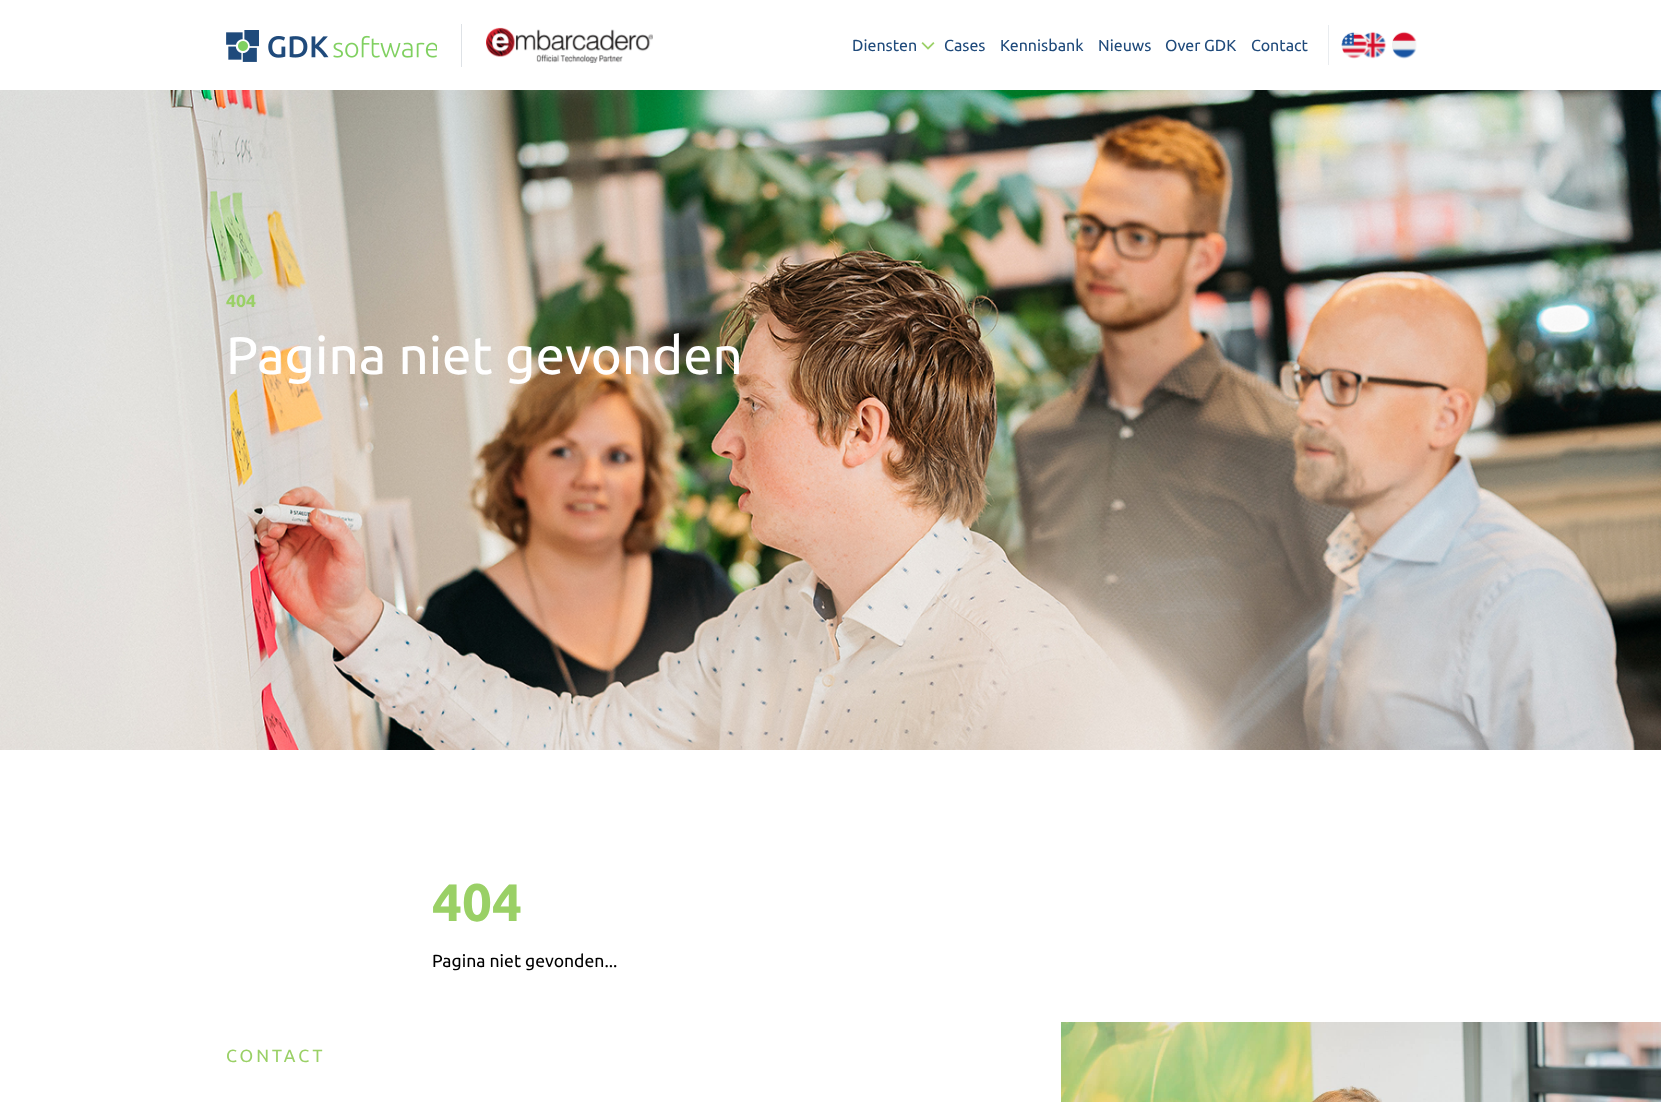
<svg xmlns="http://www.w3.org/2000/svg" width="1661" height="1102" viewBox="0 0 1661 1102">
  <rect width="100%" height="100%" fill="rgb(255,255,255)"/>
  <image x="226" y="30" width="211" height="32" href="pic1.png"/>
  <rect x="461" y="24" width="1" height="43" fill="rgb(222,226,230)"/>
  <image x="486" y="27" width="167" height="36" href="pic2.png"/>
  <image x="921" y="42" width="14" height="8" href="pic3.png"/>
  <g font-family="Ubuntu" font-size="16" fill="rgb(31,74,123)">
    <text x="852" y="51">Diensten</text>
    <text x="944" y="51">Cases</text>
    <text x="1000" y="51">Kennisbank</text>
    <text x="1098" y="51">Nieuws</text>
    <text x="1165" y="51">Over GDK</text>
    <text x="1251" y="51">Contact</text>
  </g>
  <rect x="1328" y="25" width="1" height="40" fill="rgb(233,236,239)"/>
  <image x="1341" y="31" width="46" height="28" href="pic4.png"/>
  <image x="1392" y="31" width="25" height="28" href="pic5.png"/>
  <image x="0" y="90" width="1661" height="660" href="pic6.png"/>
  <text x="226" y="307" font-family="Ubuntu" font-size="17.6" font-weight="bold" fill="rgb(154,208,102)">404</text>
  <text x="226" y="374" font-family="Ubuntu" font-size="52.75" fill="rgb(255,255,255)">Pagina niet gevonden</text>
  <text x="432" y="921" font-family="Ubuntu" font-size="52.75" font-weight="bold" fill="rgb(154,208,102)">404</text>
  <text x="432" y="967" font-family="Ubuntu" font-size="17.6" fill="rgb(0,0,0)">Pagina niet gevonden...</text>
  <text x="226" y="1062" font-family="Ubuntu" font-size="17.6" letter-spacing="3" fill="rgb(154,208,102)">CONTACT</text>
  <image x="1061" y="1022" width="600" height="80" href="pic7.png"/>
</svg>
